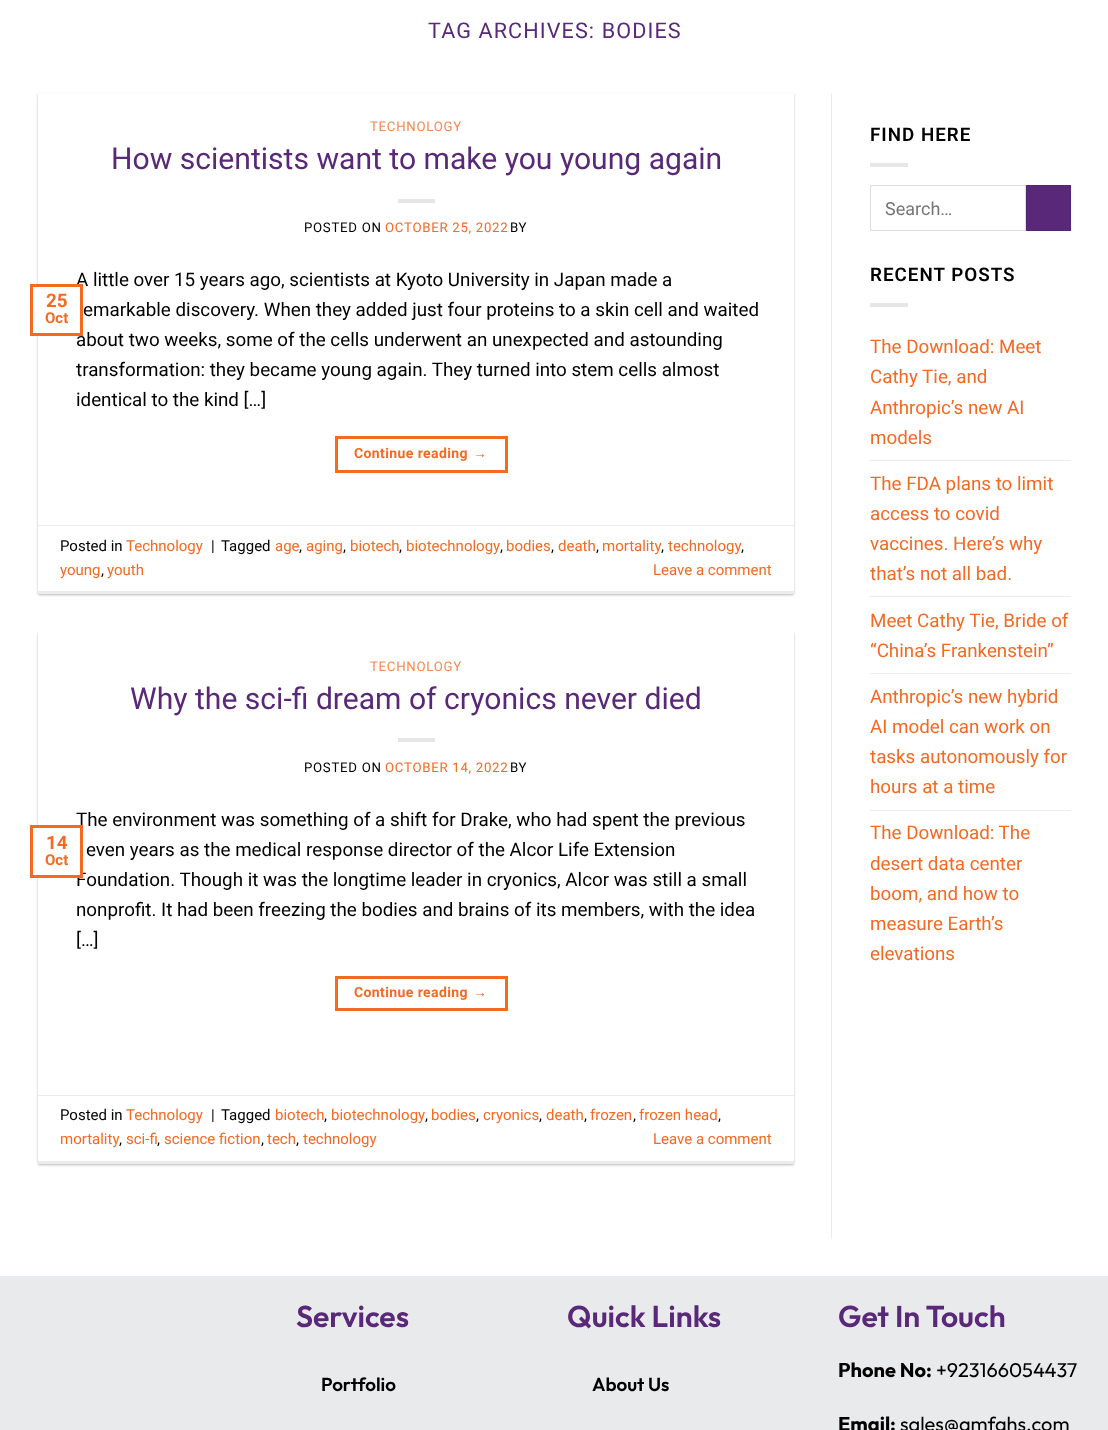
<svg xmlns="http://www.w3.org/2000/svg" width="1108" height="1430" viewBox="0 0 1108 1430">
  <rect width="100%" height="100%" fill="rgb(255,255,255)"/>
  <text x="428" y="38" font-family="Roboto" font-size="21.6" letter-spacing="1.1" fill="rgb(89,40,121)">TAG ARCHIVES: BODIES</text>
  <rect x="38" y="94" width="756" height="501" fill="rgba(0,0,0,0.24)" filter="blur(1px)"/>
  <rect x="40" y="96" width="751" height="497" fill="rgba(0,0,0,0.12)" filter="blur(2px)"/>
  <rect x="38" y="93" width="756" height="498" fill="rgb(255,255,255)"/>
  <text x="370" y="131" font-family="Roboto" font-size="13.25" letter-spacing="0.7" fill="rgb(245,136,78)">TECHNOLOGY</text>
  <text x="111" y="169" font-family="Roboto" font-size="30.1" fill="rgb(89,40,121)">How scientists want to make you young again</text>
  <rect x="398" y="199" width="37" height="4" fill="rgb(230,230,230)"/>
  <text x="304" y="232" font-family="Roboto" font-size="13.25" letter-spacing="0.7" fill="rgb(0,0,0)">POSTED ON</text>
  <text x="385" y="232" font-family="Roboto" font-size="13.25" letter-spacing="0.7" fill="rgb(243,106,34)">OCTOBER 25, 2022</text>
  <text x="510" y="232" font-family="Roboto" font-size="13.25" letter-spacing="0.7" fill="rgb(0,0,0)">BY</text>
  <rect x="36" y="287" width="2" height="46" fill="rgb(255,255,255)"/>
  <g font-family="Roboto" font-size="18.8" fill="rgb(0,0,0)">
    <text x="76" y="286">A little over 15 years ago, scientists at Kyoto University in Japan made a</text>
    <text x="76" y="346">about two weeks, some of the cells underwent an unexpected and astounding</text>
  </g>
  <rect x="31.5" y="285.5" width="50" height="49" fill="none" stroke="rgb(243,106,34)" stroke-width="3"/>
  <text x="46" y="307" font-family="Roboto" font-size="18.8" font-weight="bold" fill="rgb(243,106,34)">25</text>
  <text x="45" y="323" font-family="Roboto" font-size="15" font-weight="bold" fill="rgb(243,106,34)">Oct</text>
  <g font-family="Roboto" font-size="18.8" fill="rgb(0,0,0)">
    <text x="83" y="316">emarkable discovery. When they added just four proteins to a skin cell and waited</text>
    <text>
      <tspan x="76" y="376">transformation: they became young again. They turned into stem cells almost</tspan>
      <tspan x="76" y="406">identical to the kind […]</tspan>
    </text>
  </g>
  <rect x="336.5" y="437.5" width="170" height="34" fill="none" stroke="rgb(243,106,34)" stroke-width="3"/>
  <text x="354" y="458" font-family="Roboto" font-size="14" font-weight="bold" letter-spacing="0.4" fill="rgb(243,106,34)">Continue reading</text>
  <text x="473" y="458" font-family="Liberation Sans" font-size="14" font-weight="bold" letter-spacing="0.4" fill="rgb(243,106,34)">→</text>
  <rect x="38" y="525" width="756" height="1" fill="rgb(236,236,236)"/>
  <rect x="38" y="591" width="756" height="3" fill="rgb(236,236,236)"/>
  <text x="60" y="551" font-family="Roboto" font-size="15" fill="rgb(0,0,0)">Posted in</text>
  <text x="126" y="551" font-family="Roboto" font-size="15" fill="rgb(243,106,34)">Technology</text>
  <g font-family="Roboto" font-size="15" fill="rgb(0,0,0)">
    <text x="211" y="551">|</text>
    <text x="221" y="551">Tagged</text>
  </g>
  <text x="275" y="551" font-family="Roboto" font-size="15" fill="rgb(243,106,34)">age</text>
  <text x="299" y="551" font-family="Roboto" font-size="15" fill="rgb(0,0,0)">,</text>
  <text x="306" y="551" font-family="Roboto" font-size="15" fill="rgb(243,106,34)">aging</text>
  <text x="343" y="551" font-family="Roboto" font-size="15" fill="rgb(0,0,0)">,</text>
  <text x="350" y="551" font-family="Roboto" font-size="15" fill="rgb(243,106,34)">biotech</text>
  <text x="399" y="551" font-family="Roboto" font-size="15" fill="rgb(0,0,0)">,</text>
  <g font-family="Roboto" font-size="15" fill="rgb(243,106,34)">
    <text x="406" y="551">biotechnology</text>
    <text x="506" y="551">bodies</text>
    <text x="558" y="551">death</text>
    <text x="602" y="551">mortality</text>
    <text x="668" y="551">technology</text>
  </g>
  <g font-family="Roboto" font-size="15" fill="rgb(0,0,0)">
    <text x="500" y="551">,</text>
    <text x="551" y="551">,</text>
    <text x="596" y="551">,</text>
    <text x="661" y="551">,</text>
    <text x="741" y="551">,</text>
  </g>
  <text x="60" y="575" font-family="Roboto" font-size="15" fill="rgb(243,106,34)">young</text>
  <text x="101" y="575" font-family="Roboto" font-size="15" fill="rgb(0,0,0)">,</text>
  <g font-family="Roboto" font-size="15" fill="rgb(243,106,34)">
    <text x="107" y="575">youth</text>
    <text x="653" y="575">Leave a comment</text>
  </g>
  <rect x="38" y="633" width="756" height="532" fill="rgba(0,0,0,0.24)" filter="blur(1px)"/>
  <rect x="40" y="635" width="751" height="528" fill="rgba(0,0,0,0.12)" filter="blur(2px)"/>
  <rect x="38" y="631" width="756" height="530" fill="rgb(255,255,255)"/>
  <text x="370" y="671" font-family="Roboto" font-size="13.25" letter-spacing="0.7" fill="rgb(245,136,78)">TECHNOLOGY</text>
  <text x="130" y="709" font-family="Roboto" font-size="30.1" fill="rgb(89,40,121)">Why the sci-fi dream of cryonics never died</text>
  <rect x="398" y="738" width="37" height="4" fill="rgb(230,230,230)"/>
  <text x="304" y="772" font-family="Roboto" font-size="13.25" letter-spacing="0.7" fill="rgb(0,0,0)">POSTED ON</text>
  <text x="385" y="772" font-family="Roboto" font-size="13.25" letter-spacing="0.7" fill="rgb(243,106,34)">OCTOBER 14, 2022</text>
  <text x="510" y="772" font-family="Roboto" font-size="13.25" letter-spacing="0.7" fill="rgb(0,0,0)">BY</text>
  <g font-family="Roboto" font-size="18.8" fill="rgb(0,0,0)">
    <text x="76" y="826">The environment was something of a shift for Drake, who had spent the previous</text>
    <text x="76" y="886">Foundation. Though it was the longtime leader in cryonics, Alcor was still a small</text>
  </g>
  <rect x="36" y="828" width="44" height="47" fill="rgb(255,255,255)"/>
  <rect x="31.5" y="826.5" width="50" height="50" fill="none" stroke="rgb(243,106,34)" stroke-width="3"/>
  <text x="46" y="849" font-family="Roboto" font-size="18.8" font-weight="bold" fill="rgb(243,106,34)">14</text>
  <text x="45" y="865" font-family="Roboto" font-size="15" font-weight="bold" fill="rgb(243,106,34)">Oct</text>
  <g font-family="Roboto" font-size="18.8" fill="rgb(0,0,0)">
    <text x="86" y="856">even years as the medical response director of the Alcor Life Extension</text>
    <text>
      <tspan x="76" y="916">nonprofit. It had been freezing the bodies and brains of its members, with the idea</tspan>
      <tspan x="76" y="946">[…]</tspan>
    </text>
  </g>
  <rect x="336.5" y="977.5" width="170" height="32" fill="none" stroke="rgb(243,106,34)" stroke-width="3"/>
  <text x="354" y="997" font-family="Roboto" font-size="14" font-weight="bold" letter-spacing="0.4" fill="rgb(243,106,34)">Continue reading</text>
  <text x="473" y="997" font-family="Liberation Sans" font-size="14" font-weight="bold" letter-spacing="0.4" fill="rgb(243,106,34)">→</text>
  <rect x="38" y="1095" width="756" height="1" fill="rgb(236,236,236)"/>
  <rect x="38" y="1161" width="756" height="3" fill="rgb(236,236,236)"/>
  <text x="60" y="1120" font-family="Roboto" font-size="15" fill="rgb(0,0,0)">Posted in</text>
  <text x="126" y="1120" font-family="Roboto" font-size="15" fill="rgb(243,106,34)">Technology</text>
  <g font-family="Roboto" font-size="15" fill="rgb(0,0,0)">
    <text x="211" y="1120">|</text>
    <text x="221" y="1120">Tagged</text>
  </g>
  <text x="275" y="1120" font-family="Roboto" font-size="15" fill="rgb(243,106,34)">biotech</text>
  <text x="324" y="1120" font-family="Roboto" font-size="15" fill="rgb(0,0,0)">,</text>
  <g font-family="Roboto" font-size="15" fill="rgb(243,106,34)">
    <text x="331" y="1120">biotechnology</text>
    <text x="431" y="1120">bodies</text>
    <text x="483" y="1120">cryonics</text>
    <text x="546" y="1120">death</text>
    <text x="590" y="1120">frozen</text>
    <text x="639" y="1120">frozen head</text>
  </g>
  <g font-family="Roboto" font-size="15" fill="rgb(0,0,0)">
    <text x="425" y="1120">,</text>
    <text x="476" y="1120">,</text>
    <text x="539" y="1120">,</text>
    <text x="584" y="1120">,</text>
    <text x="633" y="1120">,</text>
    <text x="718" y="1120">,</text>
  </g>
  <text x="60" y="1144" font-family="Roboto" font-size="15" fill="rgb(243,106,34)">mortality</text>
  <text x="119" y="1144" font-family="Roboto" font-size="15" fill="rgb(0,0,0)">,</text>
  <text x="126" y="1144" font-family="Roboto" font-size="15" fill="rgb(243,106,34)">sci-fi</text>
  <text x="157" y="1144" font-family="Roboto" font-size="15" fill="rgb(0,0,0)">,</text>
  <text x="164" y="1144" font-family="Roboto" font-size="15" fill="rgb(243,106,34)">science fiction</text>
  <text x="261" y="1144" font-family="Roboto" font-size="15" fill="rgb(0,0,0)">,</text>
  <text x="267" y="1144" font-family="Roboto" font-size="15" fill="rgb(243,106,34)">tech</text>
  <text x="296" y="1144" font-family="Roboto" font-size="15" fill="rgb(0,0,0)">,</text>
  <g font-family="Roboto" font-size="15" fill="rgb(243,106,34)">
    <text x="303" y="1144">technology</text>
    <text x="653" y="1144">Leave a comment</text>
  </g>
  <rect x="831" y="93" width="1" height="1146" fill="rgb(236,236,236)"/>
  <text x="870" y="141" font-family="Roboto" font-size="18.8" font-weight="600" letter-spacing="1" fill="rgb(0,0,0)">FIND HERE</text>
  <rect x="870" y="163" width="38" height="4" fill="rgb(230,230,230)"/>
  <rect x="870.5" y="185.5" width="155" height="45" fill="none" stroke="rgb(221,221,221)"/>
  <text x="885" y="215" font-family="Roboto" font-size="18" fill="rgb(117,117,117)">Search…</text>
  <rect x="1026.5" y="185.5" width="44" height="45" fill="rgb(89,40,121)" stroke="rgb(85,38,115)"/>
  <text x="870" y="281" font-family="Roboto" font-size="18.8" font-weight="600" letter-spacing="1" fill="rgb(0,0,0)">RECENT POSTS</text>
  <rect x="870" y="303" width="38" height="4" fill="rgb(230,230,230)"/>
  <g font-family="Roboto" font-size="18.8" fill="rgb(243,106,34)">
    <text>
      <tspan x="870" y="353">The Download: Meet</tspan>
      <tspan x="870" y="383">Cathy Tie, and</tspan>
      <tspan x="870" y="414">Anthropic’s new AI</tspan>
      <tspan x="870" y="444">models</tspan>
    </text>
  </g>
  <rect x="870" y="460" width="201" height="1" fill="rgb(236,236,236)"/>
  <g font-family="Roboto" font-size="18.8" fill="rgb(243,106,34)">
    <text>
      <tspan x="870" y="490">The FDA plans to limit</tspan>
      <tspan x="870" y="520">access to covid</tspan>
      <tspan x="870" y="550">vaccines. Here’s why</tspan>
      <tspan x="870" y="580">that’s not all bad.</tspan>
    </text>
  </g>
  <rect x="870" y="596" width="201" height="1" fill="rgb(236,236,236)"/>
  <g font-family="Roboto" font-size="18.8" fill="rgb(243,106,34)">
    <text>
      <tspan x="870" y="627">Meet Cathy Tie, Bride of</tspan>
      <tspan x="870" y="657">“China’s Frankenstein”</tspan>
    </text>
  </g>
  <rect x="870" y="673" width="201" height="1" fill="rgb(236,236,236)"/>
  <g font-family="Roboto" font-size="18.8" fill="rgb(243,106,34)">
    <text>
      <tspan x="870" y="703">Anthropic’s new hybrid</tspan>
      <tspan x="870" y="733">AI model can work on</tspan>
      <tspan x="870" y="763">tasks autonomously for</tspan>
      <tspan x="870" y="793">hours at a time</tspan>
    </text>
  </g>
  <rect x="870" y="810" width="201" height="1" fill="rgb(236,236,236)"/>
  <g font-family="Roboto" font-size="18.8" fill="rgb(243,106,34)">
    <text>
      <tspan x="870" y="839">The Download: The</tspan>
      <tspan x="870" y="870">desert data center</tspan>
      <tspan x="870" y="900">boom, and how to</tspan>
      <tspan x="870" y="930">measure Earth’s</tspan>
      <tspan x="870" y="960">elevations</tspan>
    </text>
  </g>
  <rect x="0" y="1276" width="1108" height="154" fill="rgb(233,234,235)"/>
  <text x="296" y="1327" font-family="Outfit" font-size="30.1" font-weight="600" fill="rgb(89,40,121)">Services</text>
  <text x="321" y="1391" font-family="Outfit" font-size="18.8" font-weight="600" fill="rgb(0,0,0)">Portfolio</text>
  <text x="567" y="1327" font-family="Outfit" font-size="30.1" font-weight="600" fill="rgb(89,40,121)">Quick Links</text>
  <text x="592" y="1391" font-family="Outfit" font-size="18.8" font-weight="600" fill="rgb(0,0,0)">About Us</text>
  <text x="838" y="1327" font-family="Outfit" font-size="30.1" font-weight="600" fill="rgb(89,40,121)">Get In Touch</text>
  <text x="838" y="1377" font-family="Outfit" font-size="20" font-weight="bold" fill="rgb(0,0,0)">Phone No:</text>
  <text x="936" y="1377" font-family="Outfit" font-size="20" fill="rgb(0,0,0)">+923166054437</text>
  <text x="838" y="1431" font-family="Outfit" font-size="20" font-weight="bold" fill="rgb(0,0,0)">Email:</text>
  <text x="900" y="1431" font-family="Outfit" font-size="20" fill="rgb(0,0,0)">sales@amfahs.com</text>
</svg>
